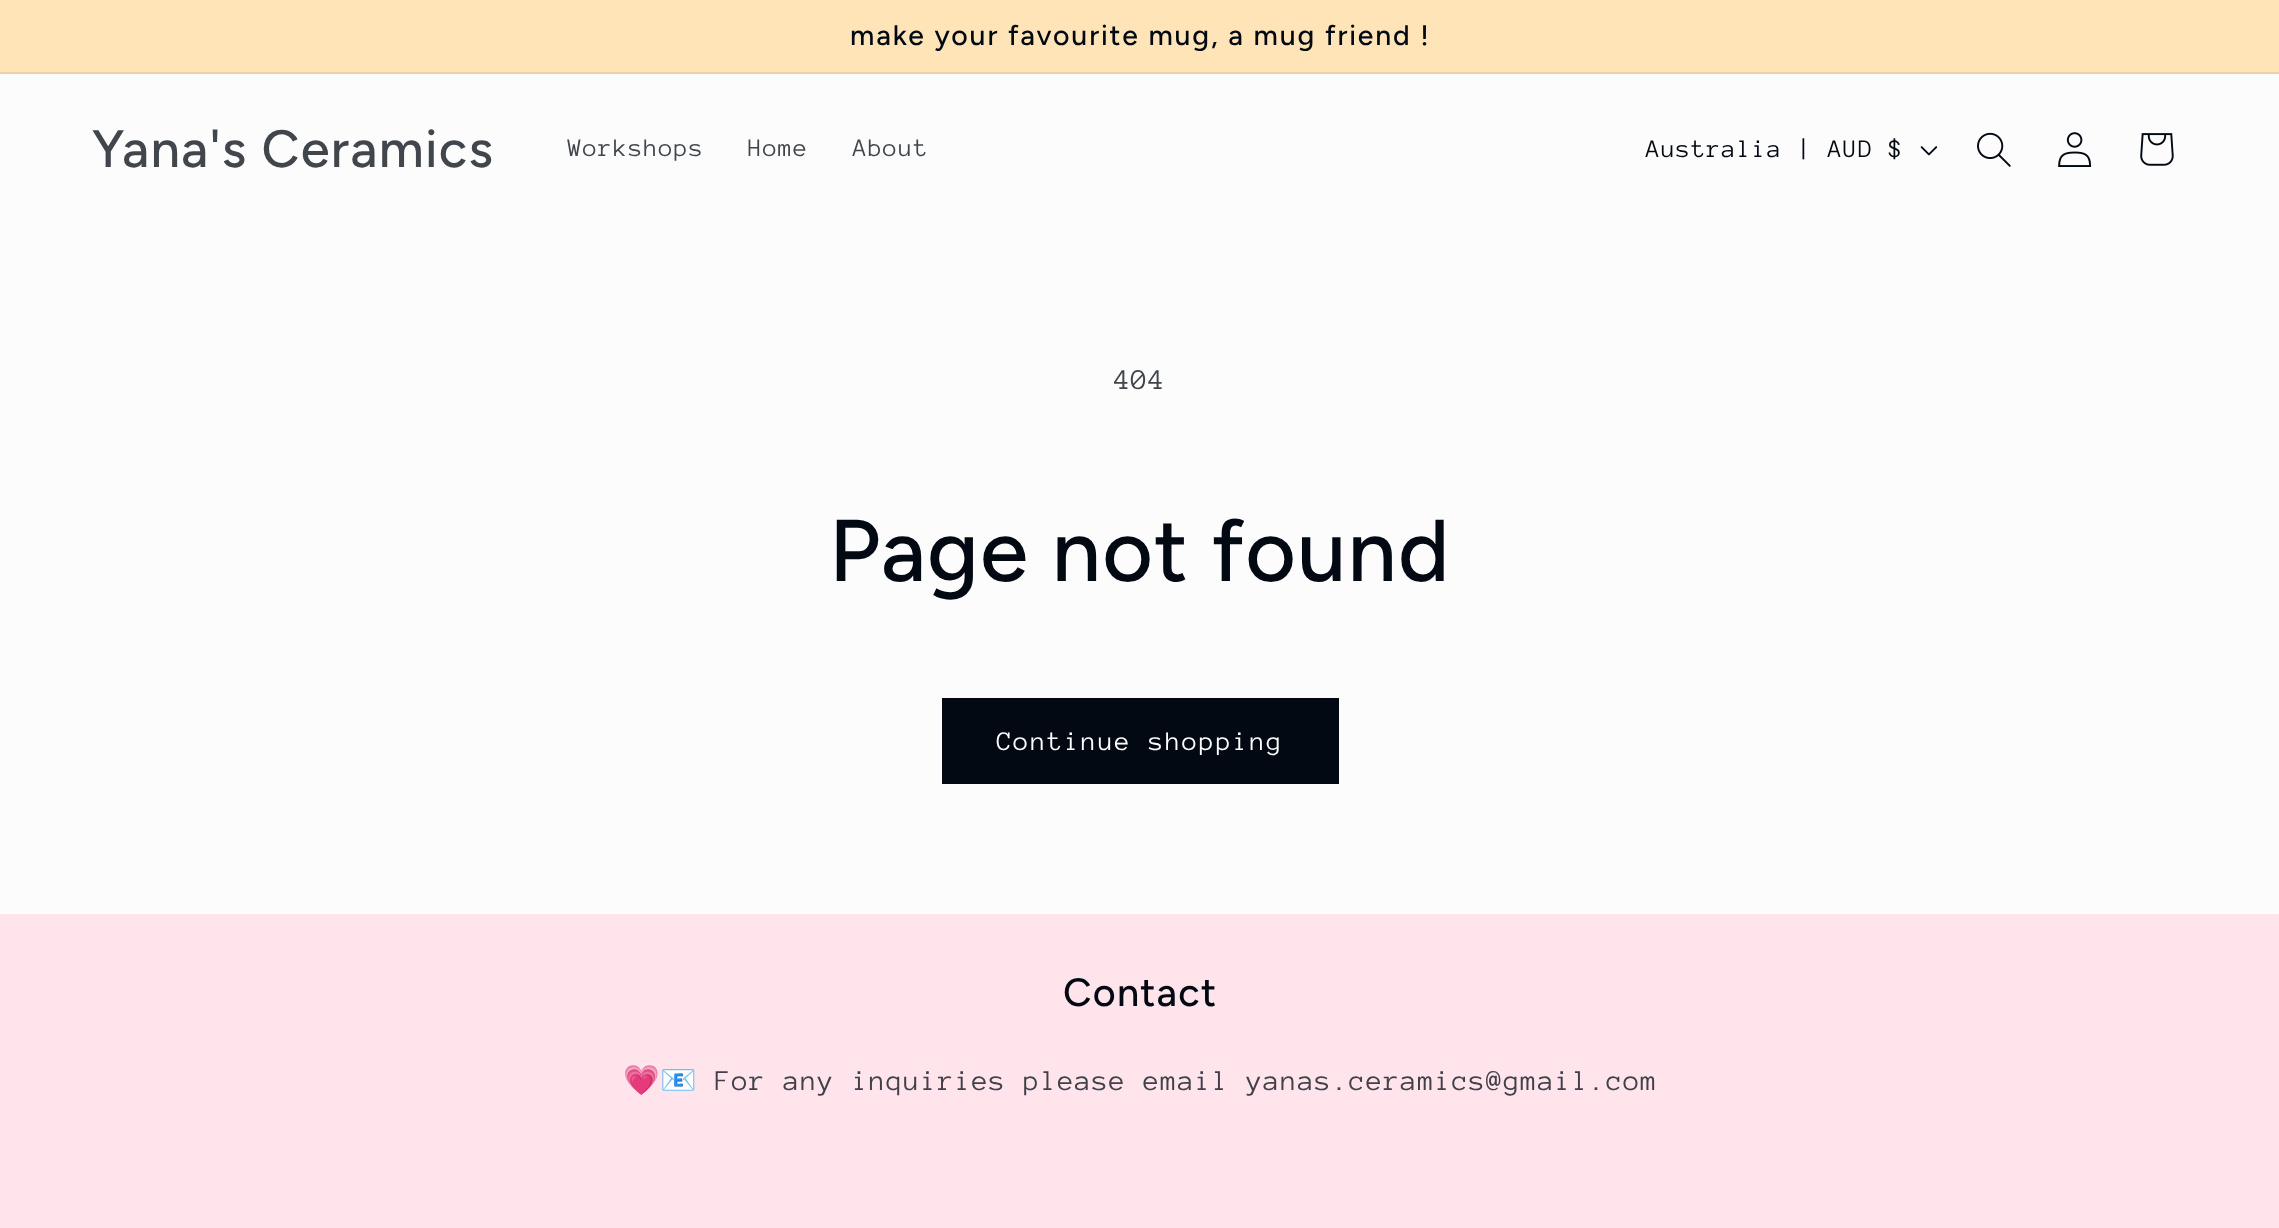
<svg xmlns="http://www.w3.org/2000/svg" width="2279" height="1228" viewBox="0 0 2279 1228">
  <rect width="100%" height="100%" fill="rgb(252,252,252)"/>
  <rect x="0" y="0" width="2279" height="72" fill="rgb(255,228,184)"/>
  <rect x="0" y="72" width="2279" height="2" fill="rgb(235,210,171)"/>
  <text x="850" y="45" font-family="Figtree" font-size="28.4" font-weight="500" letter-spacing="1.85" fill="rgb(2,9,18)">make your favourite mug, a mug friend !</text>
  <text x="92" y="167" font-family="Figtree" font-size="52.5" font-weight="500" letter-spacing="1.25" fill="rgb(65,70,77)">Yana's Ceramics</text>
  <g font-family="Anonymous Pro" font-size="25.75" letter-spacing="1.1" fill="rgb(65,70,77)">
    <text x="568" y="156">Workshops</text>
    <text x="748" y="156">Home</text>
    <text x="853" y="156">About</text>
  </g>
  <text x="1646" y="157" font-family="Anonymous Pro" font-size="25.75" letter-spacing="1.1" fill="rgb(2,9,18)">Australia | AUD $</text>
  <image x="1920" y="146" width="18" height="10" href="pic1.png"/>
  <image x="1977" y="132" width="34" height="35" href="pic2.png"/>
  <image x="2058" y="132" width="34" height="35" href="pic3.png"/>
  <image x="2140" y="133" width="34" height="33" href="pic4.png"/>
  <text x="1114" y="389" font-family="Anonymous Pro" font-size="29.4" letter-spacing="1.1" fill="rgb(65,70,77)">404</text>
  <text x="829" y="581" font-family="Figtree" font-size="87.5" font-weight="500" letter-spacing="1.25" fill="rgb(2,9,18)">Page not found</text>
  <rect x="942" y="698" width="397" height="86" fill="rgb(2,9,18)"/>
  <text x="997" y="750" font-family="Anonymous Pro" font-size="27.5" letter-spacing="1.85" fill="rgb(252,252,252)">Continue shopping</text>
  <rect x="0" y="914" width="2279" height="314" fill="rgb(255,228,236)"/>
  <text x="1063" y="1006" font-family="Figtree" font-size="39.5" font-weight="500" letter-spacing="1.25" fill="rgb(2,9,18)">Contact</text>
  <text x="623" y="1090" font-family="Noto Color Emoji" font-size="29.4" letter-spacing="1.1" fill="rgb(65,64,73)">💗📧</text>
  <text x="715" y="1090" font-family="Anonymous Pro" font-size="29.4" letter-spacing="1.1" fill="rgb(65,64,73)">For any inquiries please email yanas.ceramics@gmail.com</text>
</svg>
